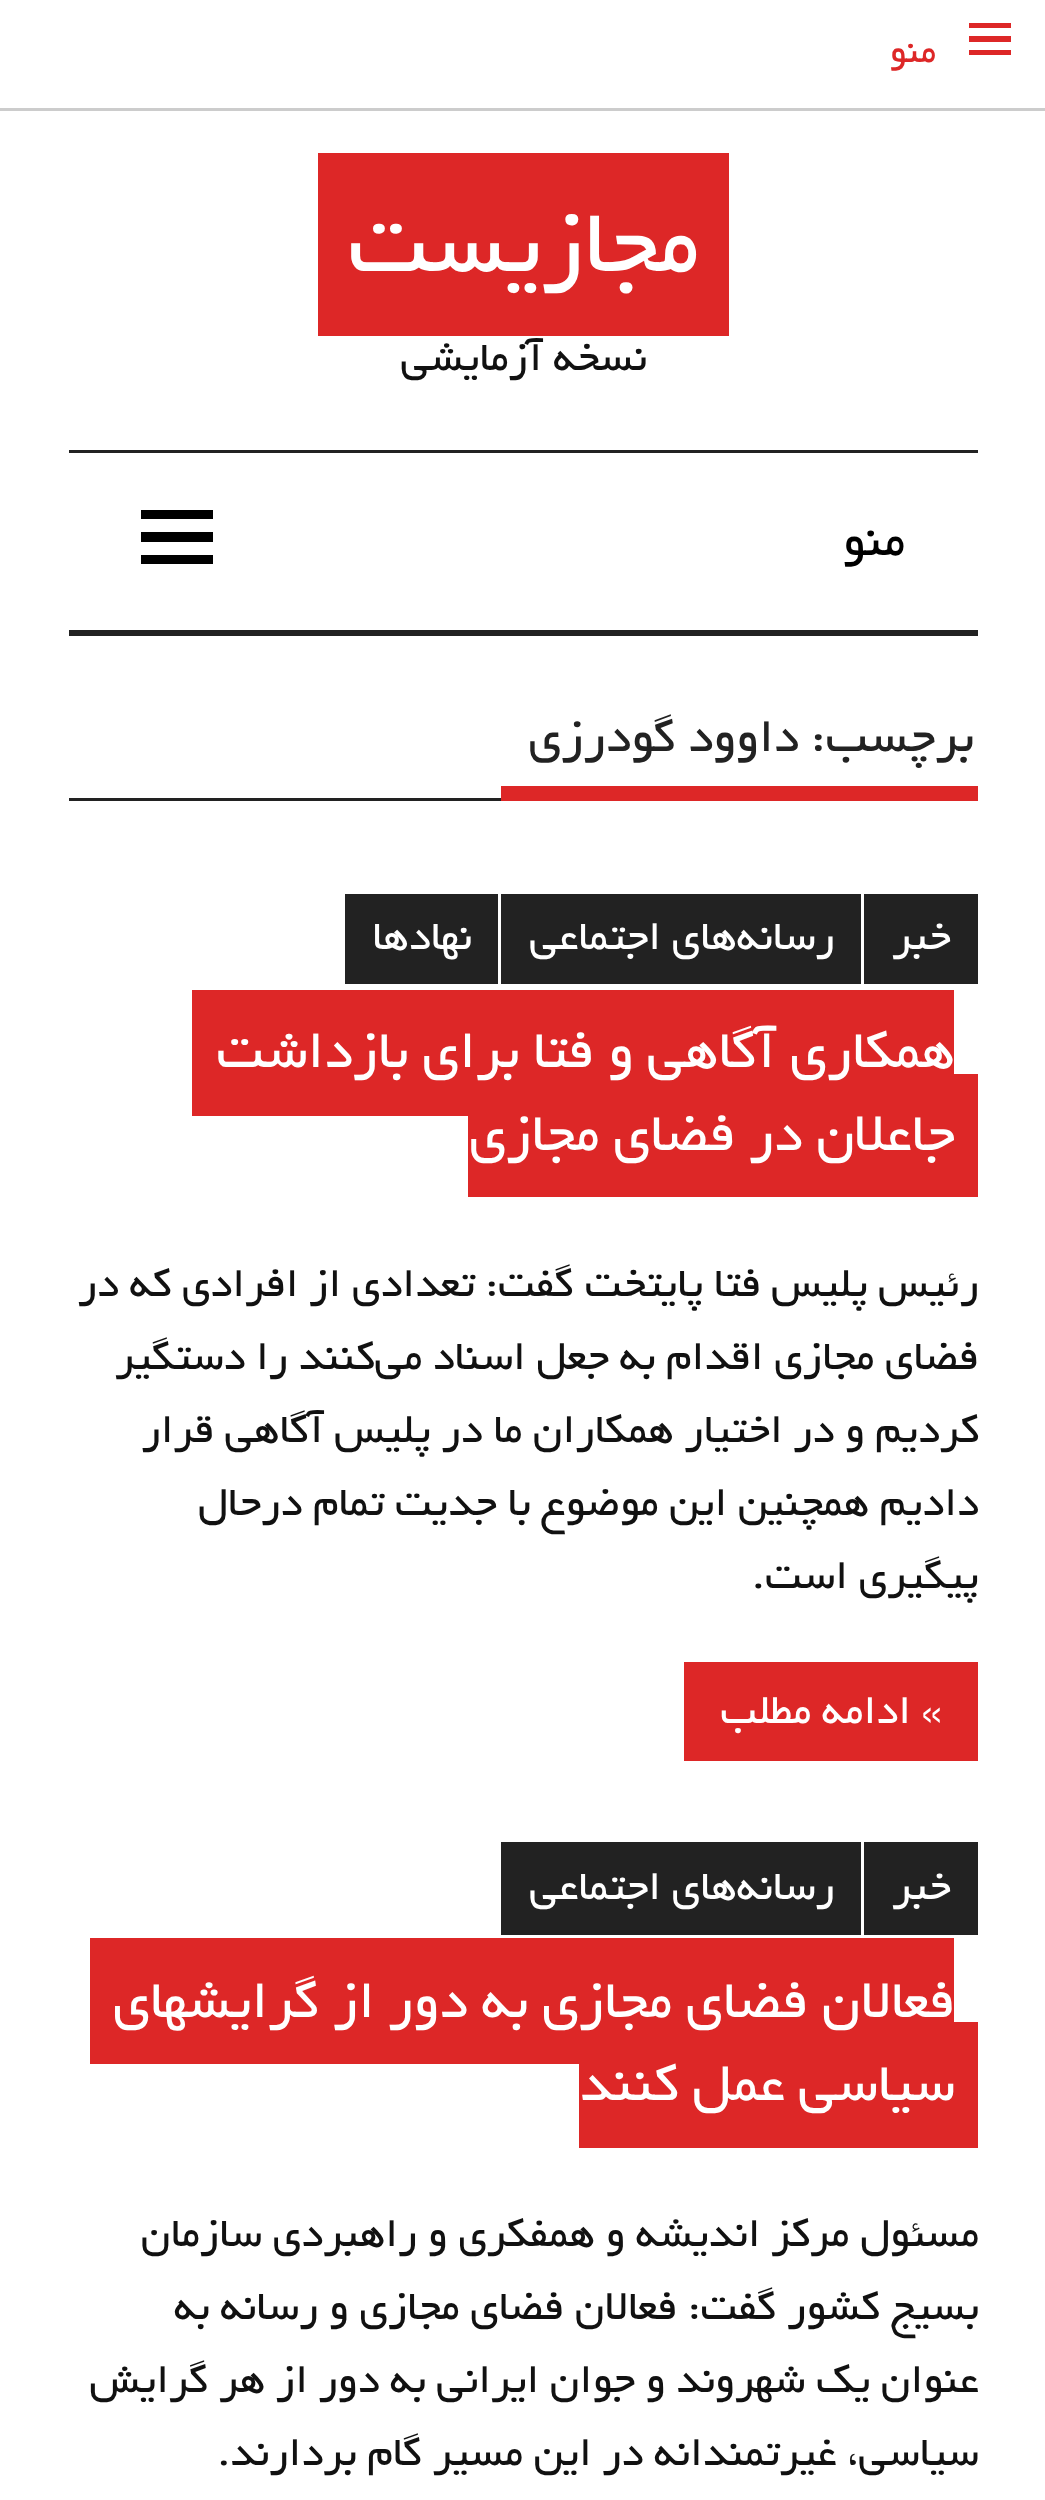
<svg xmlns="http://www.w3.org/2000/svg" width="1045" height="2500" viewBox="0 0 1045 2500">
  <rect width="100%" height="100%" fill="rgb(255,255,255)"/>
  <rect x="0" y="108" width="1045" height="3" fill="rgb(204,204,204)"/>
  <path d="M969 55V50H1011V55ZM969 23H1011V28H969ZM969 42V36H1011V42Z" fill="rgb(221,39,39)"/>
  <text x="936" y="62" font-family="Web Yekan" font-size="39" direction="rtl" fill="rgb(221,39,39)">منو</text>
  <rect x="318" y="153" width="411" height="183" fill="rgb(221,39,39)"/>
  <text x="699" y="271" font-family="Web Yekan" font-size="100.5" direction="rtl" fill="rgb(255,255,255)">مجازیست</text>
  <text x="647" y="370" font-family="Web Yekan" font-size="45.6" direction="rtl" fill="rgb(17,17,17)">نسخه آزمایشی</text>
  <rect x="69" y="450" width="909" height="3" fill="rgb(34,34,34)"/>
  <rect x="69" y="630" width="909" height="6" fill="rgb(34,34,34)"/>
  <text x="905" y="555" font-family="Web Yekan" font-size="52.5" direction="rtl" fill="rgb(0,0,0)">منو</text>
  <path d="M141 564V555H213V564ZM141 510H213V519H141ZM141 542V532H213V542Z" fill="rgb(0,0,0)"/>
  <rect x="69" y="798" width="432" height="3" fill="rgb(34,34,34)"/>
  <rect x="501" y="786" width="477" height="15" fill="rgb(221,39,39)"/>
  <g font-family="Web Yekan" font-size="52.5" direction="rtl" fill="rgb(34,34,34)">
    <text x="974" y="751">برچسب:</text>
    <text x="799" y="751">داوود گودرزی</text>
  </g>
  <rect x="864" y="894" width="114" height="90" fill="rgb(34,34,34)"/>
  <text x="951" y="949" font-family="Web Yekan" font-size="45.6" direction="rtl" fill="rgb(255,255,255)">خبر</text>
  <rect x="501" y="894" width="360" height="90" fill="rgb(34,34,34)"/>
  <text x="835" y="949" font-family="Web Yekan" font-size="45.6" direction="rtl" fill="rgb(255,255,255)">رسانه‌های اجتماعی</text>
  <rect x="345" y="894" width="153" height="90" fill="rgb(34,34,34)"/>
  <text x="472" y="949" font-family="Web Yekan" font-size="45.6" direction="rtl" fill="rgb(255,255,255)">نهادها</text>
  <rect x="192" y="990" width="762" height="126" fill="rgb(221,39,39)"/>
  <rect x="468" y="1074" width="510" height="123" fill="rgb(221,39,39)"/>
  <g font-family="Web Yekan" font-size="59.25" direction="rtl" fill="rgb(255,255,255)">
    <text>
      <tspan x="955" y="1067">همکاری آگاهی و فتا برای بازداشت</tspan>
      <tspan x="955" y="1150">جاعلان در فضای مجازی</tspan>
    </text>
  </g>
  <g font-family="Web Yekan" font-size="45.6" direction="rtl" fill="rgb(17,17,17)">
    <text>
      <tspan x="979" y="1296">رئیس پلیس فتا پایتخت گفت: تعدادی از افرادی که در</tspan>
      <tspan x="979" y="1369">فضای مجازی اقدام به جعل اسناد می‌کنند را دستگیر</tspan>
      <tspan x="979" y="1442">کردیم و در اختیار همکاران ما در پلیس آگاهی قرار</tspan>
      <tspan x="979" y="1515">دادیم همچنین این موضوع با جدیت تمام درحال</tspan>
      <tspan x="979" y="1588">پیگیری است.</tspan>
    </text>
  </g>
  <rect x="684" y="1662" width="294" height="99" fill="rgb(221,39,39)"/>
  <text x="942" y="1723" font-family="Web Yekan" font-size="45.6" direction="rtl" fill="rgb(255,255,255)">» ادامه مطلب</text>
  <rect x="864" y="1842" width="114" height="93" fill="rgb(34,34,34)"/>
  <text x="951" y="1899" font-family="Web Yekan" font-size="45.6" direction="rtl" fill="rgb(255,255,255)">خبر</text>
  <rect x="501" y="1842" width="360" height="93" fill="rgb(34,34,34)"/>
  <text x="835" y="1899" font-family="Web Yekan" font-size="45.6" direction="rtl" fill="rgb(255,255,255)">رسانه‌های اجتماعی</text>
  <rect x="90" y="1938" width="864" height="126" fill="rgb(221,39,39)"/>
  <rect x="579" y="2022" width="399" height="126" fill="rgb(221,39,39)"/>
  <g font-family="Web Yekan" font-size="59.25" direction="rtl" fill="rgb(255,255,255)">
    <text>
      <tspan x="955" y="2017">فعالان فضای مجازی به دور از گرایشهای</tspan>
      <tspan x="955" y="2100">سیاسی عمل کنند</tspan>
    </text>
  </g>
  <g font-family="Web Yekan" font-size="45.6" direction="rtl" fill="rgb(17,17,17)">
    <text>
      <tspan x="979" y="2246">مسئول مرکز اندیشه و همفکری و راهبردی سازمان</tspan>
      <tspan x="979" y="2319">بسیج کشور گفت: فعالان فضای مجازی و رسانه به</tspan>
      <tspan x="979" y="2392">عنوان یک شهروند و جوان ایرانی به دور از هر گرایش</tspan>
      <tspan x="979" y="2465">سیاسی، غیرتمندانه در این مسیر گام بردارند.</tspan>
    </text>
  </g>
</svg>
